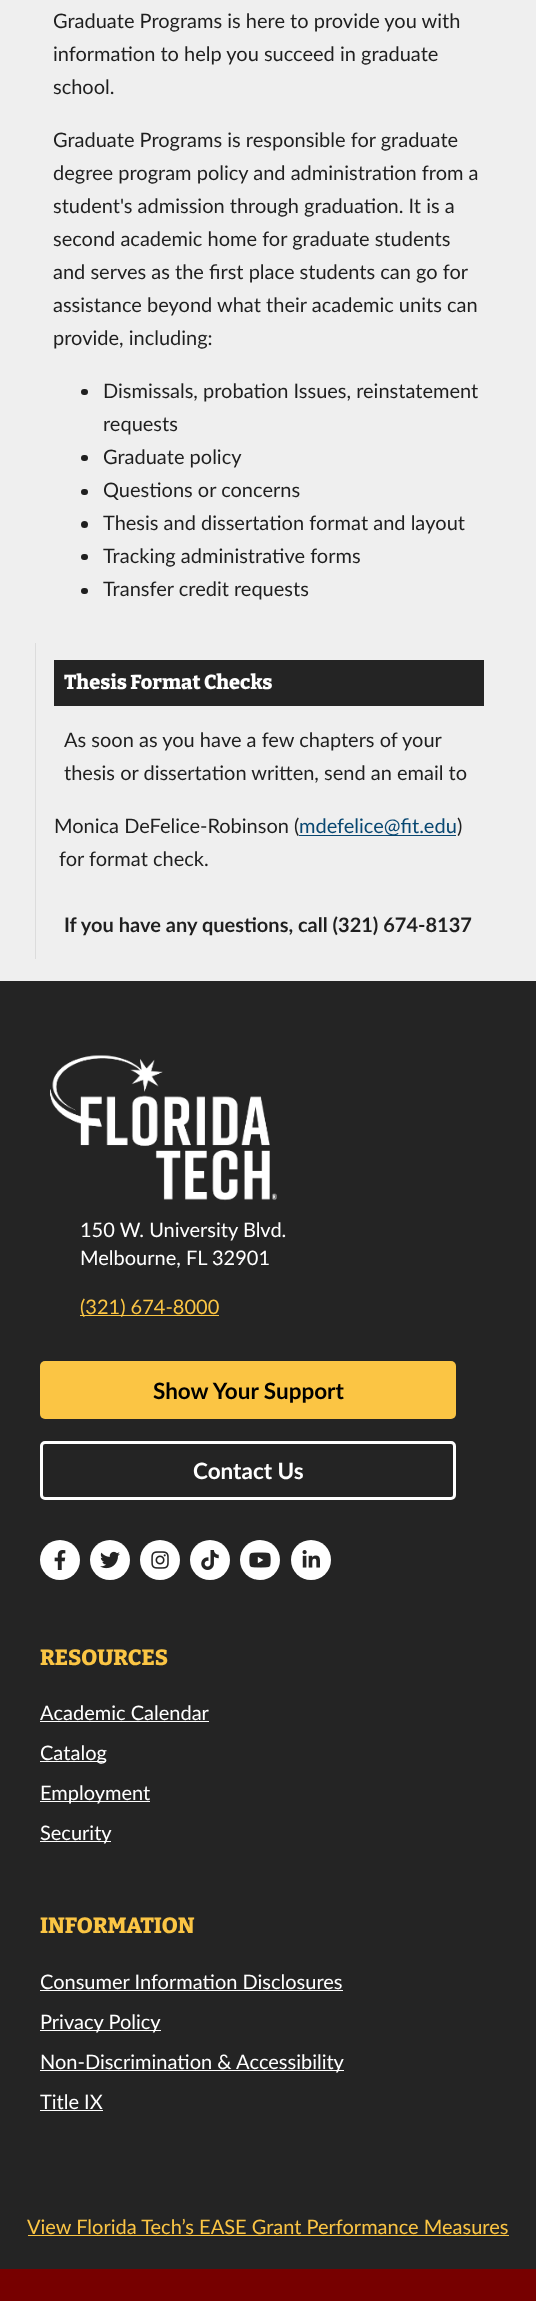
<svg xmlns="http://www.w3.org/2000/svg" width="536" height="2301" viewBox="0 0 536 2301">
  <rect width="100%" height="100%" fill="rgb(239,239,239)"/>
  <g font-family="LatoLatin" font-size="20" fill="rgb(31,31,31)">
    <text>
      <tspan x="53" y="28">Graduate Programs is here to provide you with</tspan>
      <tspan x="53" y="61">information to help you succeed in graduate</tspan>
      <tspan x="53" y="94">school.</tspan>
    </text>
    <text>
      <tspan x="53" y="147">Graduate Programs is responsible for graduate</tspan>
      <tspan x="53" y="180">degree program policy and administration from a</tspan>
      <tspan x="53" y="213">student's admission through graduation. It is a</tspan>
      <tspan x="53" y="246">second academic home for graduate students</tspan>
      <tspan x="53" y="279">and serves as the first place students can go for</tspan>
      <tspan x="53" y="312">assistance beyond what their academic units can</tspan>
      <tspan x="53" y="345">provide, including:</tspan>
    </text>
  </g>
  <rect x="81" y="389" width="7" height="6" rx="3" fill="rgb(31,31,31)"/>
  <g font-family="LatoLatin" font-size="20" fill="rgb(31,31,31)">
    <text>
      <tspan x="103" y="398">Dismissals, probation Issues, reinstatement</tspan>
      <tspan x="103" y="431">requests</tspan>
    </text>
  </g>
  <rect x="81" y="455" width="7" height="6" rx="3" fill="rgb(31,31,31)"/>
  <text x="103" y="464" font-family="LatoLatin" font-size="20" fill="rgb(31,31,31)">Graduate policy</text>
  <rect x="81" y="489" width="7" height="6" rx="3" fill="rgb(31,31,31)"/>
  <text x="103" y="497" font-family="LatoLatin" font-size="20" fill="rgb(31,31,31)">Questions or concerns</text>
  <circle cx="84.5" cy="524.5" r="3.5" fill="rgb(31,31,31)"/>
  <text x="103" y="530" font-family="LatoLatin" font-size="20" fill="rgb(31,31,31)">Thesis and dissertation format and layout</text>
  <rect x="81" y="554" width="7" height="6" rx="3" fill="rgb(31,31,31)"/>
  <text x="103" y="563" font-family="LatoLatin" font-size="20" fill="rgb(31,31,31)">Tracking administrative forms</text>
  <rect x="81" y="588" width="7" height="6" rx="3" fill="rgb(31,31,31)"/>
  <text x="103" y="596" font-family="LatoLatin" font-size="20" fill="rgb(31,31,31)">Transfer credit requests</text>
  <rect x="35" y="643" width="1" height="316" fill="rgb(220,220,220)"/>
  <rect x="54" y="660" width="430" height="46" fill="rgb(36,36,36)"/>
  <text x="64" y="689" font-family="Bitter" font-size="20" font-weight="800" fill="rgb(255,255,255)">Thesis Format Checks</text>
  <g font-family="LatoLatin" font-size="20" fill="rgb(31,31,31)">
    <text>
      <tspan x="64" y="747">As soon as you have a few chapters of your</tspan>
      <tspan x="64" y="780">thesis or dissertation written, send an email to</tspan>
    </text>
    <text x="54" y="833">Monica DeFelice-Robinson (</text>
  </g>
  <rect x="299" y="835" width="157" height="1" fill="rgb(8,71,113)"/>
  <text x="299" y="833" font-family="LatoLatin" font-size="20" fill="rgb(8,71,113)">mdefelice@fit.edu</text>
  <g font-family="LatoLatin" font-size="20" fill="rgb(31,31,31)">
    <text x="457" y="833">)</text>
    <text x="59" y="866">for format check.</text>
  </g>
  <text x="64" y="932" font-family="LatoLatin" font-size="20" font-weight="bold" fill="rgb(31,31,31)">If you have any questions, call (321) 674-8137</text>
  <rect x="0" y="981" width="536" height="1288" fill="rgb(36,36,36)"/>
  <image x="50" y="1055" width="227" height="146" href="pic1.png"/>
  <g font-family="LatoLatin" font-size="20" fill="rgb(255,255,255)">
    <text>
      <tspan x="80" y="1237">150 W. University Blvd.</tspan>
      <tspan x="80" y="1265">Melbourne, FL 32901</tspan>
    </text>
  </g>
  <rect x="80" y="1315" width="139" height="1" fill="rgb(251,197,68)"/>
  <text x="80" y="1314" font-family="LatoLatin" font-size="20" fill="rgb(251,197,68)">(321) 674-8000</text>
  <rect x="40" y="1361" width="416" height="58" rx="5" fill="rgb(251,197,68)"/>
  <text x="153" y="1399" font-family="LatoLatin" font-size="22.5" font-weight="bold" fill="rgb(0,0,0)">Show Your Support</text>
  <rect x="41.5" y="1442.5" width="413" height="56" rx="3.5" fill="none" stroke="rgb(255,255,255)" stroke-width="3"/>
  <text x="193" y="1479" font-family="LatoLatin" font-size="22.5" font-weight="bold" fill="rgb(255,255,255)">Contact Us</text>
  <circle cx="60" cy="1560" r="20" fill="rgb(255,255,255)"/>
  <image x="54" y="1550" width="12" height="20" href="pic2.png"/>
  <circle cx="110" cy="1560" r="20" fill="rgb(255,255,255)"/>
  <image x="100" y="1551" width="20" height="18" href="pic3.png"/>
  <circle cx="160" cy="1560" r="20" fill="rgb(255,255,255)"/>
  <image x="151" y="1551" width="18" height="18" href="pic4.png"/>
  <circle cx="210" cy="1560" r="20" fill="rgb(255,255,255)"/>
  <image x="201" y="1550" width="18" height="20" href="pic5.png"/>
  <circle cx="260" cy="1560" r="20" fill="rgb(255,255,255)"/>
  <image x="249" y="1552" width="22" height="16" href="pic6.png"/>
  <circle cx="311" cy="1560" r="20" fill="rgb(255,255,255)"/>
  <image x="302" y="1550" width="18" height="18" href="pic7.png"/>
  <text x="40" y="1665" font-family="Bitter" font-size="22" font-weight="800" fill="rgb(251,197,68)">RESOURCES</text>
  <text x="40" y="1720" font-family="LatoLatin" font-size="20" fill="rgb(255,255,255)">Academic Calendar</text>
  <rect x="40" y="1721" width="169" height="1" fill="rgb(255,255,255)"/>
  <rect x="40" y="1761" width="66" height="1" fill="rgb(255,255,255)"/>
  <text x="40" y="1760" font-family="LatoLatin" font-size="20" fill="rgb(255,255,255)">Catalog</text>
  <rect x="40" y="1801" width="110" height="1" fill="rgb(255,255,255)"/>
  <text x="40" y="1800" font-family="LatoLatin" font-size="20" fill="rgb(255,255,255)">Employment</text>
  <rect x="40" y="1841" width="71" height="1" fill="rgb(255,255,255)"/>
  <text x="40" y="1840" font-family="LatoLatin" font-size="20" fill="rgb(255,255,255)">Security</text>
  <text x="40" y="1933" font-family="Bitter" font-size="22" font-weight="800" fill="rgb(251,197,68)">INFORMATION</text>
  <text x="40" y="1989" font-family="LatoLatin" font-size="20" fill="rgb(255,255,255)">Consumer Information Disclosures</text>
  <rect x="40" y="1990" width="303" height="1" fill="rgb(255,255,255)"/>
  <rect x="40" y="2030" width="121" height="1" fill="rgb(255,255,255)"/>
  <text x="40" y="2029" font-family="LatoLatin" font-size="20" fill="rgb(255,255,255)">Privacy Policy</text>
  <rect x="40" y="2070" width="304" height="1" fill="rgb(255,255,255)"/>
  <g font-family="LatoLatin" font-size="20" fill="rgb(255,255,255)">
    <text x="40" y="2069">Non-Discrimination &amp; Accessibility</text>
    <text x="40" y="2109">Title IX</text>
  </g>
  <rect x="40" y="2110" width="63" height="1" fill="rgb(255,255,255)"/>
  <text x="27" y="2234" font-family="LatoLatin" font-size="20" fill="rgb(251,197,68)">View Florida Tech’s EASE Grant Performance Measures</text>
  <rect x="28" y="2235" width="481" height="1" fill="rgb(251,197,68)"/>
  <rect x="0" y="2269" width="536" height="32" fill="rgb(119,0,0)"/>
</svg>
